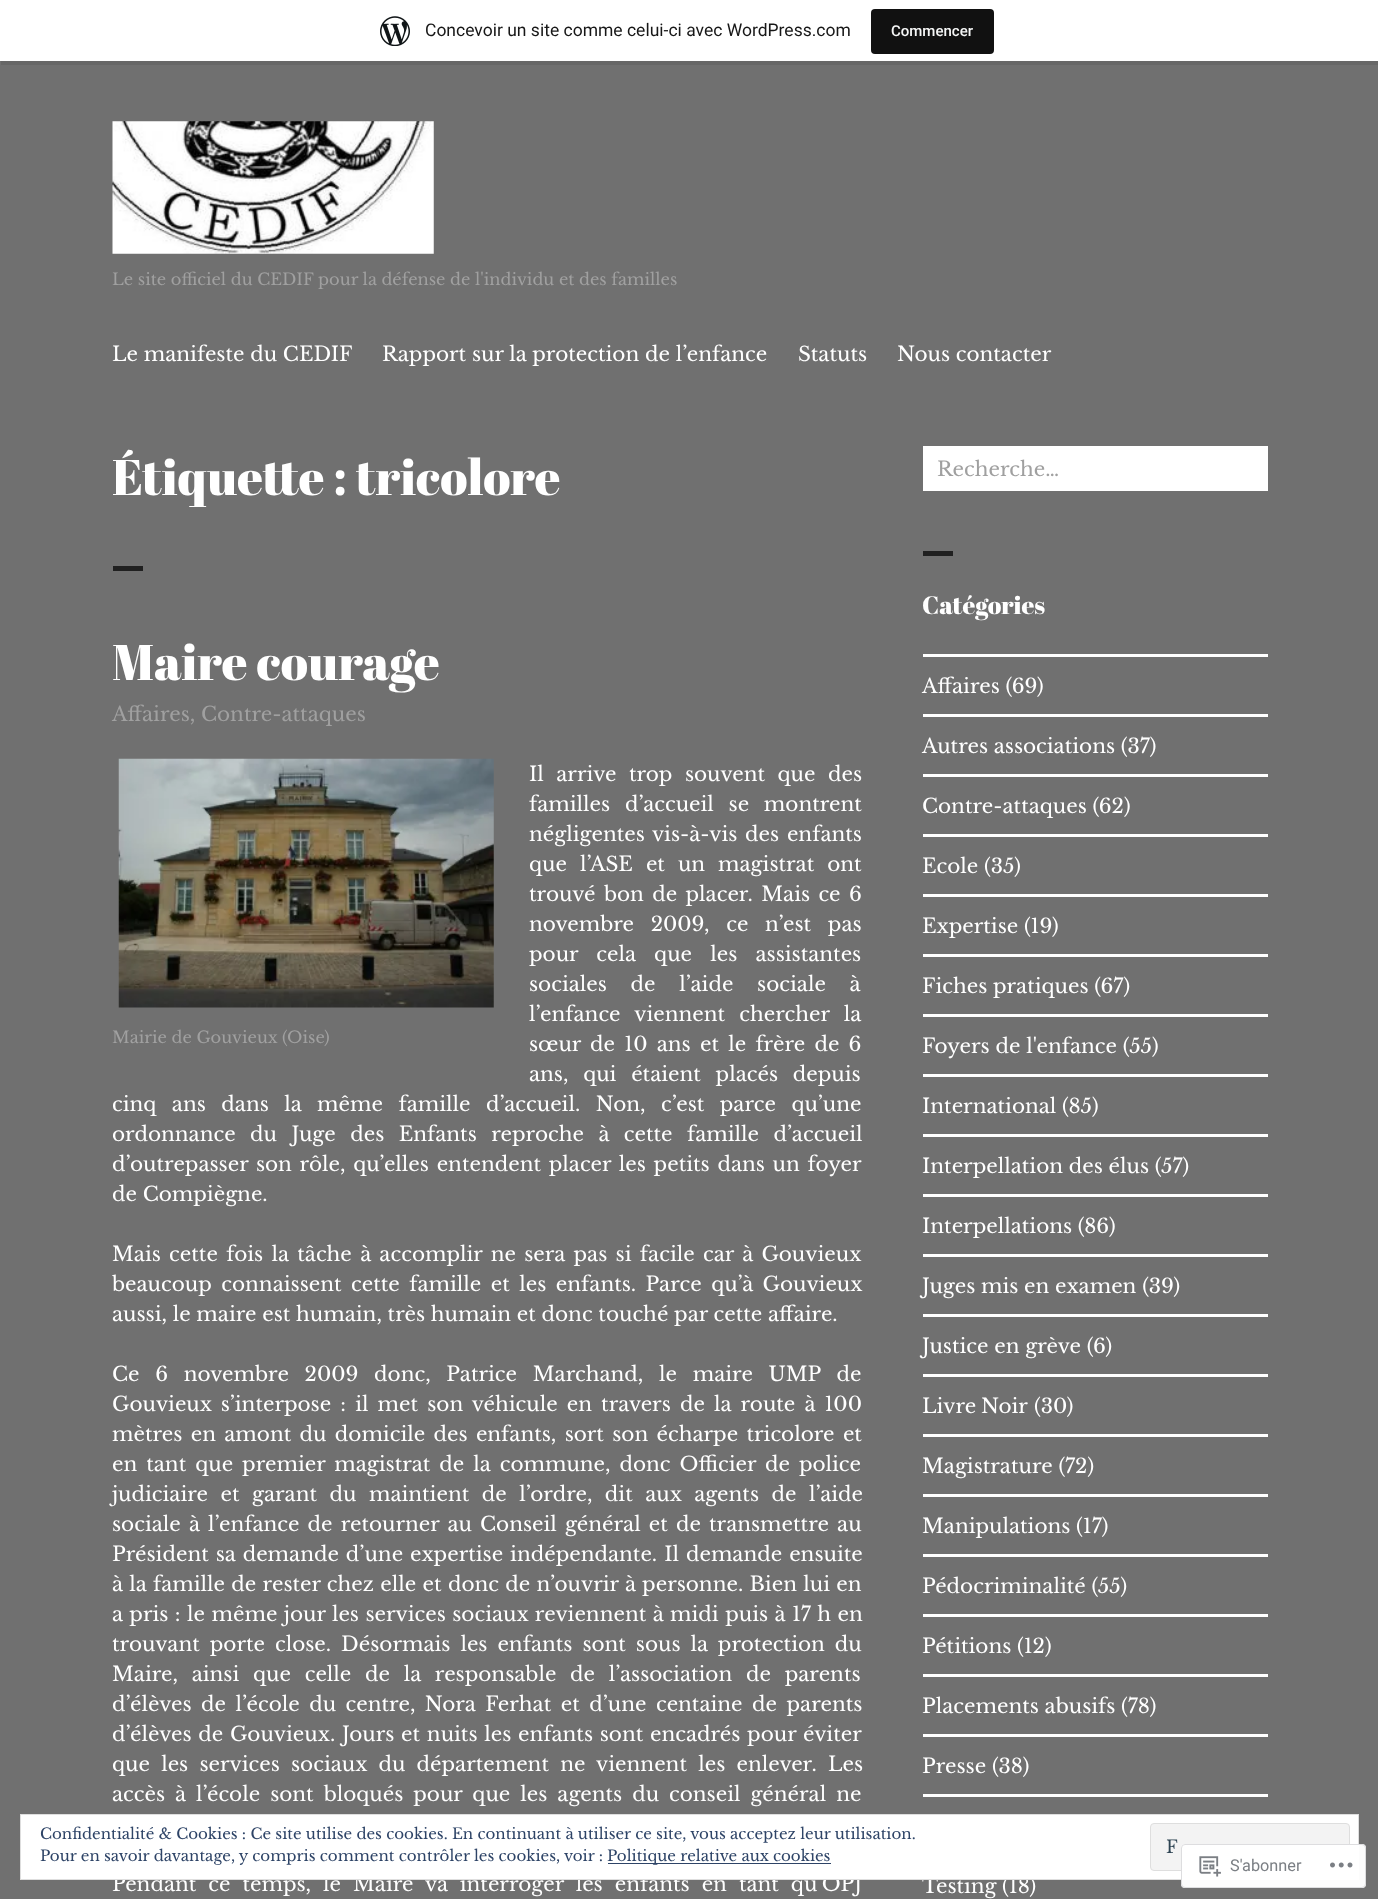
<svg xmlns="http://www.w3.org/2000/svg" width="1378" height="1899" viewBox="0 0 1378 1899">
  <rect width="100%" height="100%" fill="rgb(112,112,112)"/>
  <path d="M1 61V65H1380V4H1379V61Z" fill="rgba(0,0,0,0.08)"/>
  <rect x="0" y="0" width="1378" height="61" fill="rgb(255,255,255)"/>
  <image x="380" y="16" width="30" height="30" href="pic1.png"/>
  <text x="425" y="36" font-family="Roboto" font-size="17.5" fill="rgb(23,23,23)">Concevoir un site comme celui-ci avec WordPress.com</text>
  <rect x="871" y="9" width="123" height="45" rx="4" fill="rgb(17,17,17)"/>
  <text x="891" y="36" font-family="Roboto" font-size="15" font-weight="500" fill="rgb(246,247,247)">Commencer</text>
  <image x="112" y="121" width="322" height="133" href="pic2.png"/>
  <text x="112" y="285" font-family="Libre Baskerville" font-size="16.25" fill="rgb(160,160,160)">Le site officiel du CEDIF pour la défense de l'individu et des familles</text>
  <g font-family="Libre Baskerville" font-size="20" fill="rgb(255,255,255)">
    <text x="112" y="361">Le manifeste du CEDIF</text>
    <text x="382" y="361">Rapport sur la protection de l’enfance</text>
    <text x="798" y="361">Statuts</text>
    <text x="897" y="361">Nous contacter</text>
  </g>
  <text x="112" y="495" font-family="Abril Fatface" font-size="50" fill="rgb(255,255,255)">Étiquette : tricolore</text>
  <rect x="113" y="566" width="30" height="5" fill="rgb(32,32,32)"/>
  <text x="112" y="680" font-family="Abril Fatface" font-size="50" fill="rgb(255,255,255)">Maire courage</text>
  <text x="112" y="721" font-family="Libre Baskerville" font-size="20" fill="rgb(160,160,160)">Affaires, Contre-attaques</text>
  <g font-family="Libre Baskerville" font-size="20" fill="rgb(255,255,255)">
    <text>
      <tspan x="529" y="781" word-spacing="6.75">Il arrive trop souvent que des</tspan>
      <tspan x="529" y="811" word-spacing="9">familles d’accueil se montrent</tspan>
      <tspan x="529" y="841" word-spacing="2">négligentes vis-à-vis des enfants</tspan>
      <tspan x="529" y="871" word-spacing="7.25">que l’ASE et un magistrat ont</tspan>
      <tspan x="529" y="901" word-spacing="2.6">trouvé bon de placer. Mais ce 6</tspan>
      <tspan x="529" y="931" word-spacing="11">novembre 2009, ce n’est pas</tspan>
      <tspan x="529" y="961" word-spacing="12.5">pour cela que les assistantes</tspan>
      <tspan x="529" y="991" word-spacing="18">sociales de l’aide sociale à</tspan>
      <tspan x="529" y="1021" word-spacing="8.5">l’enfance viennent chercher la</tspan>
      <tspan x="529" y="1051" word-spacing="3.5">sœur de 10 ans et le frère de 6</tspan>
      <tspan x="529" y="1081" word-spacing="9">ans, qui étaient placés depuis</tspan>
    </text>
    <text>
      <tspan x="112" y="1111" word-spacing="9.75">cinq ans dans la même famille d’accueil. Non, c’est parce qu’une</tspan>
      <tspan x="112" y="1141" word-spacing="8.75">ordonnance du Juge des Enfants reproche à cette famille d’accueil</tspan>
      <tspan x="112" y="1171" word-spacing="2">d’outrepasser son rôle, qu’elles entendent placer les petits dans un foyer</tspan>
      <tspan x="112" y="1201">de Compiègne.</tspan>
    </text>
  </g>
  <image x="118" y="758" width="376" height="250" href="pic3.png"/>
  <text x="112" y="1043" font-family="Libre Baskerville" font-size="16.25" fill="rgb(160,160,160)">Mairie de Gouvieux (Oise)</text>
  <g font-family="Libre Baskerville" font-size="20" fill="rgb(255,255,255)">
    <text>
      <tspan x="112" y="1261" word-spacing="2.6">Mais cette fois la tâche à accomplir ne sera pas si facile car à Gouvieux</tspan>
      <tspan x="112" y="1291" word-spacing="3.75">beaucoup connaissent cette famille et les enfants. Parce qu’à Gouvieux</tspan>
      <tspan x="112" y="1321">aussi, le maire est humain, très humain et donc touché par cette affaire.</tspan>
    </text>
    <text>
      <tspan x="112" y="1381" word-spacing="10">Ce 6 novembre 2009 donc, Patrice Marchand, le maire UMP de</tspan>
      <tspan x="112" y="1411" word-spacing="3.4">Gouvieux s’interpose : il met son véhicule en travers de la route à 100</tspan>
      <tspan x="112" y="1441" word-spacing="2.6">mètres en amont du domicile des enfants, sort son écharpe tricolore et</tspan>
      <tspan x="112" y="1471" word-spacing="3.25">en tant que premier magistrat de la commune, donc Officier de police</tspan>
      <tspan x="112" y="1501" word-spacing="6.75">judiciaire et garant du maintient de l’ordre, dit aux agents de l’aide</tspan>
      <tspan x="112" y="1531" word-spacing="2.4">sociale à l’enfance de retourner au Conseil général et de transmettre au</tspan>
      <tspan x="112" y="1561" word-spacing="1.25">Président sa demande d’une expertise indépendante. Il demande ensuite</tspan>
      <tspan x="112" y="1591" word-spacing="0.6">à la famille de rester chez elle et donc de n’ouvrir à personne. Bien lui en</tspan>
      <tspan x="112" y="1621" word-spacing="0.75">a pris : le même jour les services sociaux reviennent à midi puis à 17 h en</tspan>
      <tspan x="112" y="1651" word-spacing="4.25">trouvant porte close. Désormais les enfants sont sous la protection du</tspan>
      <tspan x="112" y="1681" word-spacing="8">Maire, ainsi que celle de la responsable de l’association de parents</tspan>
      <tspan x="112" y="1711" word-spacing="3.75">d’élèves de l’école du centre, Nora Ferhat et d’une centaine de parents</tspan>
      <tspan x="112" y="1741" word-spacing="1">d’élèves de Gouvieux. Jours et nuits les enfants sont encadrés pour éviter</tspan>
      <tspan x="112" y="1771" word-spacing="5.5">que les services sociaux du département ne viennent les enlever. Les</tspan>
      <tspan x="112" y="1801" word-spacing="4.25">accès à l’école sont bloqués pour que les agents du conseil général ne</tspan>
    </text>
    <text x="112" y="1891" word-spacing="6.25">Pendant ce temps, le Maire va interroger les enfants en tant qu’OPJ</text>
  </g>
  <rect x="923" y="446" width="345" height="45" fill="rgb(255,255,255)"/>
  <text x="937" y="476" font-family="Libre Baskerville" font-size="20" fill="rgb(160,160,160)">Recherche…</text>
  <rect x="923" y="551" width="30" height="5" fill="rgb(32,32,32)"/>
  <text x="922" y="614" font-family="Abril Fatface" font-size="25" fill="rgb(255,255,255)">Catégories</text>
  <rect x="923" y="654" width="345" height="3" fill="rgb(255,255,255)"/>
  <text x="922" y="693" font-family="Libre Baskerville" font-size="20" fill="rgb(255,255,255)">Affaires (69)</text>
  <rect x="923" y="714" width="345" height="3" fill="rgb(255,255,255)"/>
  <text x="922" y="753" font-family="Libre Baskerville" font-size="20" fill="rgb(255,255,255)">Autres associations (37)</text>
  <rect x="923" y="774" width="345" height="3" fill="rgb(255,255,255)"/>
  <text x="922" y="813" font-family="Libre Baskerville" font-size="20" fill="rgb(255,255,255)">Contre-attaques (62)</text>
  <rect x="923" y="834" width="345" height="3" fill="rgb(255,255,255)"/>
  <text x="922" y="873" font-family="Libre Baskerville" font-size="20" fill="rgb(255,255,255)">Ecole (35)</text>
  <rect x="923" y="894" width="345" height="3" fill="rgb(255,255,255)"/>
  <text x="922" y="933" font-family="Libre Baskerville" font-size="20" fill="rgb(255,255,255)">Expertise (19)</text>
  <rect x="923" y="954" width="345" height="3" fill="rgb(255,255,255)"/>
  <text x="922" y="993" font-family="Libre Baskerville" font-size="20" fill="rgb(255,255,255)">Fiches pratiques (67)</text>
  <rect x="923" y="1014" width="345" height="3" fill="rgb(255,255,255)"/>
  <text x="922" y="1053" font-family="Libre Baskerville" font-size="20" fill="rgb(255,255,255)">Foyers de l'enfance (55)</text>
  <rect x="923" y="1074" width="345" height="3" fill="rgb(255,255,255)"/>
  <text x="922" y="1113" font-family="Libre Baskerville" font-size="20" fill="rgb(255,255,255)">International (85)</text>
  <rect x="923" y="1134" width="345" height="3" fill="rgb(255,255,255)"/>
  <text x="922" y="1173" font-family="Libre Baskerville" font-size="20" fill="rgb(255,255,255)">Interpellation des élus (57)</text>
  <rect x="923" y="1194" width="345" height="3" fill="rgb(255,255,255)"/>
  <text x="922" y="1233" font-family="Libre Baskerville" font-size="20" fill="rgb(255,255,255)">Interpellations (86)</text>
  <rect x="923" y="1254" width="345" height="3" fill="rgb(255,255,255)"/>
  <text x="922" y="1293" font-family="Libre Baskerville" font-size="20" fill="rgb(255,255,255)">Juges mis en examen (39)</text>
  <rect x="923" y="1314" width="345" height="3" fill="rgb(255,255,255)"/>
  <text x="922" y="1353" font-family="Libre Baskerville" font-size="20" fill="rgb(255,255,255)">Justice en grève (6)</text>
  <rect x="923" y="1374" width="345" height="3" fill="rgb(255,255,255)"/>
  <g font-family="Libre Baskerville" font-size="20" fill="rgb(255,255,255)">
    <text x="922" y="1413" word-spacing="-1">Livre Noir</text>
    <text x="1034" y="1413">(30)</text>
  </g>
  <rect x="923" y="1434" width="345" height="3" fill="rgb(255,255,255)"/>
  <text x="922" y="1473" font-family="Libre Baskerville" font-size="20" fill="rgb(255,255,255)">Magistrature (72)</text>
  <rect x="923" y="1494" width="345" height="3" fill="rgb(255,255,255)"/>
  <text x="922" y="1533" font-family="Libre Baskerville" font-size="20" fill="rgb(255,255,255)">Manipulations (17)</text>
  <rect x="923" y="1554" width="345" height="3" fill="rgb(255,255,255)"/>
  <text x="922" y="1593" font-family="Libre Baskerville" font-size="20" fill="rgb(255,255,255)">Pédocriminalité (55)</text>
  <rect x="923" y="1614" width="345" height="3" fill="rgb(255,255,255)"/>
  <text x="922" y="1653" font-family="Libre Baskerville" font-size="20" fill="rgb(255,255,255)">Pétitions (12)</text>
  <rect x="923" y="1674" width="345" height="3" fill="rgb(255,255,255)"/>
  <text x="922" y="1713" font-family="Libre Baskerville" font-size="20" fill="rgb(255,255,255)">Placements abusifs (78)</text>
  <rect x="923" y="1734" width="345" height="3" fill="rgb(255,255,255)"/>
  <text x="922" y="1773" font-family="Libre Baskerville" font-size="20" fill="rgb(255,255,255)">Presse (38)</text>
  <rect x="923" y="1794" width="345" height="3" fill="rgb(255,255,255)"/>
  <text x="922" y="1893" font-family="Libre Baskerville" font-size="20" fill="rgb(255,255,255)">Testing (18)</text>
  <rect x="20.5" y="1814.5" width="1338" height="65" fill="rgb(255,255,255)" stroke="rgb(222,222,222)"/>
  <text x="40" y="1839" font-family="Libre Baskerville" font-size="15" fill="rgb(46,68,103)">Confidentialité &amp; Cookies : Ce site utilise des cookies. En continuant à utiliser ce site, vous acceptez leur utilisation.</text>
  <rect x="1150.5" y="1823.5" width="199" height="47" rx="3.5" fill="rgb(243,243,243)" stroke="rgb(222,222,222)"/>
  <text x="1166" y="1853" font-family="Libre Baskerville" font-size="17.5" fill="rgb(46,68,83)">F</text>
  <text x="40" y="1861" font-family="Libre Baskerville" font-size="15" fill="rgb(46,68,103)">Pour en savoir davantage, y compris comment contrôler les cookies, voir :</text>
  <rect x="608" y="1863" width="223" height="1" fill="rgb(46,68,103)"/>
  <text x="607" y="1861" font-family="Libre Baskerville" font-size="15" fill="rgb(46,68,103)">Politique relative aux cookies</text>
  <rect x="1181" y="1844" width="185" height="44" rx="4" fill="rgba(255,255,255,0.98)"/>
  <rect x="1181.5" y="1844.5" width="184" height="43" rx="3.5" fill="none" stroke="rgba(220,220,222,0.98)"/>
  <image x="1199" y="1856" width="22" height="21" href="pic4.png"/>
  <text x="1230" y="1871" font-family="Roboto" font-size="16.25" fill="rgb(123,127,132)">S'abonner</text>
  <image x="1330" y="1862" width="23" height="6" href="pic5.png"/>
</svg>
